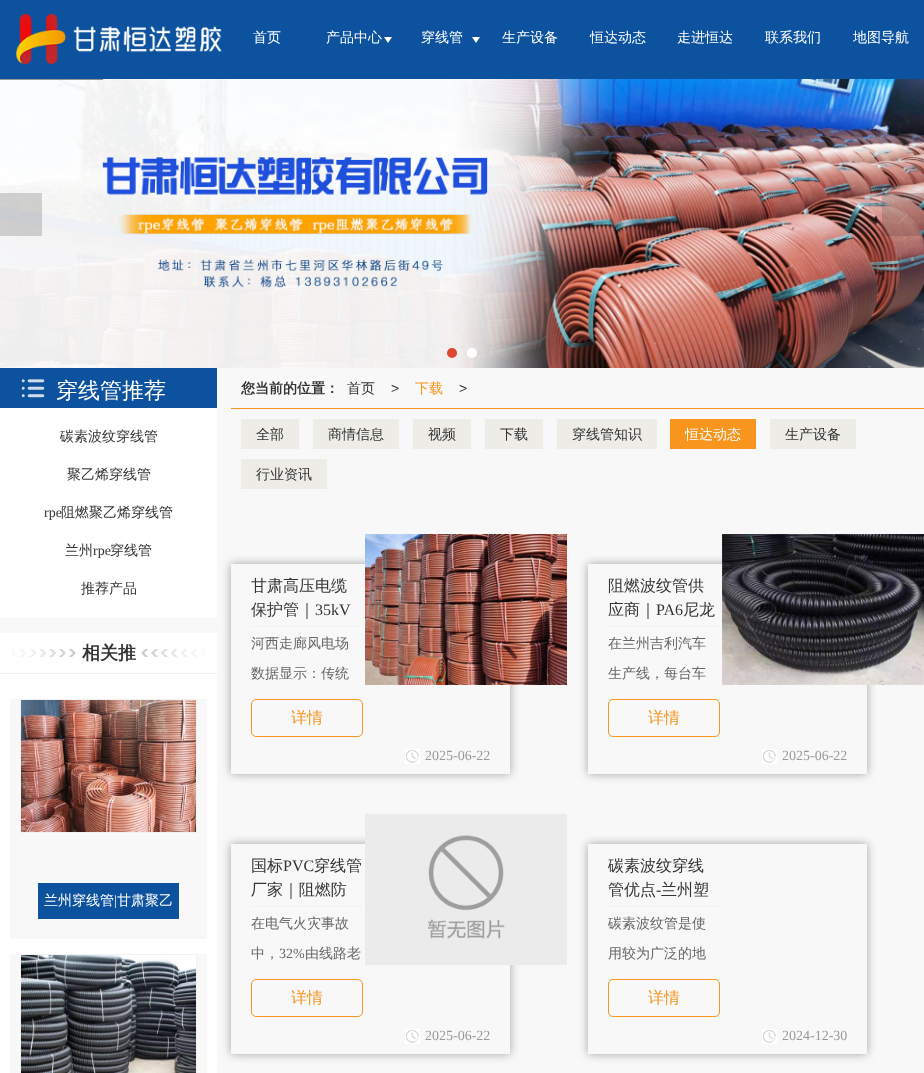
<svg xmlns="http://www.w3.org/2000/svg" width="924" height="1073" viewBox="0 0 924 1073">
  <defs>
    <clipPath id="clip1"><path d="M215 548H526V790H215ZM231 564H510V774H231Z" clip-rule="evenodd"/></clipPath>
    <clipPath id="clip2"><path d="M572 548H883V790H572ZM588 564H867V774H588Z" clip-rule="evenodd"/></clipPath>
    <clipPath id="clip3"><path d="M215 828H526V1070H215ZM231 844H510V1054H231Z" clip-rule="evenodd"/></clipPath>
    <clipPath id="clip4"><path d="M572 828H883V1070H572ZM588 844H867V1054H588Z" clip-rule="evenodd"/></clipPath>
  </defs>
  <rect width="100%" height="100%" fill="rgb(248,248,248)"/>
  <rect x="0" y="0" width="924" height="79" fill="rgb(12,82,158)"/>
  <image x="15" y="14" width="207" height="50" href="pic1.png"/>
  <g font-family="WenQuanYi Zen Hei" font-size="14" font-weight="500" fill="rgb(255,255,255)">
    <text x="253" y="42">首页</text>
    <text x="326" y="42">产品中心</text>
  </g>
  <path d="M384 37H392L388 43Z" fill="rgb(255,255,255)"/>
  <text x="421" y="42" font-family="WenQuanYi Zen Hei" font-size="14" font-weight="500" fill="rgb(255,255,255)">穿线管</text>
  <path d="M472 37H480L476 43Z" fill="rgb(255,255,255)"/>
  <g font-family="WenQuanYi Zen Hei" font-size="14" font-weight="500" fill="rgb(255,255,255)">
    <text x="502" y="42">生产设备</text>
    <text x="590" y="42">恒达动态</text>
    <text x="677" y="42">走进恒达</text>
    <text x="765" y="42">联系我们</text>
    <text x="853" y="42">地图导航</text>
  </g>
  <image x="0" y="79" width="924" height="289" href="pic2.png"/>
  <rect x="0" y="79" width="103" height="1" fill="rgba(0,0,0,0.4)"/>
  <rect x="0" y="193" width="42" height="43" fill="rgba(57,57,57,0.2)"/>
  <image x="16" y="205" width="10" height="19" href="pic3.png"/>
  <rect x="882" y="193" width="42" height="43" fill="rgba(57,57,57,0.2)"/>
  <image x="898" y="205" width="10" height="19" href="pic4.png"/>
  <circle cx="452" cy="353" r="5" fill="rgb(225,71,47)"/>
  <circle cx="472" cy="353" r="5" fill="rgb(255,255,255)"/>
  <rect x="0" y="408" width="217" height="210" fill="rgb(255,255,255)"/>
  <rect x="0" y="368" width="217" height="40" fill="rgb(12,82,158)"/>
  <image x="21" y="379" width="24" height="19" href="pic5.png"/>
  <text x="56" y="398" font-family="WenQuanYi Zen Hei" font-size="22" font-weight="500" fill="rgb(255,255,255)">穿线管推荐</text>
  <g font-family="WenQuanYi Zen Hei" font-size="14" font-weight="500" fill="rgb(51,51,51)">
    <text x="60" y="441">碳素波纹穿线管</text>
    <text x="67" y="479">聚乙烯穿线管</text>
  </g>
  <text x="44" y="517" font-family="Liberation Serif" font-size="14" fill="rgb(51,51,51)">rpe</text>
  <g font-family="WenQuanYi Zen Hei" font-size="14" font-weight="500" fill="rgb(51,51,51)">
    <text x="61" y="517">阻燃聚乙烯穿线管</text>
    <text x="65" y="555">兰州</text>
  </g>
  <text x="93" y="555" font-family="Liberation Serif" font-size="14" fill="rgb(51,51,51)">rpe</text>
  <g font-family="WenQuanYi Zen Hei" font-size="14" font-weight="500" fill="rgb(51,51,51)">
    <text x="110" y="555">穿线管</text>
    <text x="81" y="593">推荐产品</text>
  </g>
  <rect x="0" y="633" width="217" height="440" fill="rgb(255,255,255)"/>
  <rect x="0" y="673" width="217" height="1" fill="rgb(241,241,241)"/>
  <image x="11" y="649" width="65" height="8" href="pic6.png"/>
  <text x="82" y="659" font-family="WenQuanYi Zen Hei" font-size="18" font-weight="bold" fill="rgb(51,51,51)">相关推</text>
  <image x="141" y="649" width="65" height="8" href="pic7.png"/>
  <rect x="10" y="699" width="197" height="240" fill="rgb(248,248,248)"/>
  <rect x="20.5" y="699.5" width="176" height="133" fill="none" stroke="rgb(241,241,241)"/>
  <image x="21" y="700" width="175" height="132" href="pic8.png"/>
  <rect x="38" y="883" width="141" height="36" fill="rgb(12,82,158)"/>
  <text x="44" y="905" font-family="WenQuanYi Zen Hei" font-size="14" font-weight="500" fill="rgb(255,255,255)">兰州穿线管</text>
  <text x="114" y="905" font-family="Liberation Serif" font-size="14" fill="rgb(255,255,255)">|</text>
  <text x="117" y="905" font-family="WenQuanYi Zen Hei" font-size="14" font-weight="500" fill="rgb(255,255,255)">甘肃聚乙</text>
  <rect x="10" y="954" width="197" height="119" fill="rgb(248,248,248)"/>
  <rect x="20.5" y="954.5" width="176" height="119" fill="none" stroke="rgb(241,241,241)"/>
  <image x="21" y="955" width="175" height="118" href="pic9.png"/>
  <rect x="231" y="408" width="693" height="1" fill="rgb(247,149,30)"/>
  <text x="241" y="393" font-family="WenQuanYi Zen Hei" font-size="14" font-weight="bold" fill="rgb(51,51,51)">您当前的位置：</text>
  <text x="347" y="393" font-family="WenQuanYi Zen Hei" font-size="14" font-weight="500" fill="rgb(51,51,51)">首页</text>
  <text x="391" y="393" font-family="Liberation Sans" font-size="14" fill="rgb(51,51,51)">&gt;</text>
  <text x="415" y="393" font-family="WenQuanYi Zen Hei" font-size="14" font-weight="500" fill="rgb(247,149,30)">下载</text>
  <text x="459" y="393" font-family="Liberation Sans" font-size="14" fill="rgb(51,51,51)">&gt;</text>
  <rect x="241" y="419" width="58" height="30" fill="rgb(237,236,231)"/>
  <text x="256" y="439" font-family="WenQuanYi Zen Hei" font-size="14" font-weight="500" fill="rgb(51,51,51)">全部</text>
  <rect x="313" y="419" width="86" height="30" fill="rgb(237,236,231)"/>
  <text x="328" y="439" font-family="WenQuanYi Zen Hei" font-size="14" font-weight="500" fill="rgb(51,51,51)">商情信息</text>
  <rect x="413" y="419" width="58" height="30" fill="rgb(237,236,231)"/>
  <text x="428" y="439" font-family="WenQuanYi Zen Hei" font-size="14" font-weight="500" fill="rgb(51,51,51)">视频</text>
  <rect x="485" y="419" width="58" height="30" fill="rgb(237,236,231)"/>
  <text x="500" y="439" font-family="WenQuanYi Zen Hei" font-size="14" font-weight="500" fill="rgb(51,51,51)">下载</text>
  <rect x="557" y="419" width="100" height="30" fill="rgb(237,236,231)"/>
  <text x="572" y="439" font-family="WenQuanYi Zen Hei" font-size="14" font-weight="500" fill="rgb(51,51,51)">穿线管知识</text>
  <rect x="670" y="419" width="86" height="30" fill="rgb(247,149,30)"/>
  <text x="685" y="439" font-family="WenQuanYi Zen Hei" font-size="14" font-weight="500" fill="rgb(255,255,255)">恒达动态</text>
  <rect x="770" y="419" width="86" height="30" fill="rgb(237,236,231)"/>
  <text x="785" y="439" font-family="WenQuanYi Zen Hei" font-size="14" font-weight="500" fill="rgb(51,51,51)">生产设备</text>
  <rect x="241" y="459" width="86" height="30" fill="rgb(237,236,231)"/>
  <text x="256" y="479" font-family="WenQuanYi Zen Hei" font-size="14" font-weight="500" fill="rgb(51,51,51)">行业资讯</text>
  <g clip-path="url(#clip1)">
    <rect x="231" y="564" width="279" height="210" fill="rgb(161,161,161)" filter="blur(5px)"/>
  </g>
  <image x="365" y="534" width="202" height="151" href="pic10.png"/>
  <rect x="251" y="626" width="112" height="1" fill="rgb(241,241,241)"/>
  <g font-family="WenQuanYi Zen Hei" font-size="16" font-weight="500" fill="rgb(51,51,51)">
    <text>
      <tspan x="251" y="591">甘肃高压电缆</tspan>
      <tspan x="251" y="615">保护管｜</tspan>
    </text>
  </g>
  <text x="315" y="615" font-family="Liberation Serif" font-size="16" fill="rgb(51,51,51)">35kV</text>
  <g font-family="WenQuanYi Zen Hei" font-size="14" font-weight="500" fill="rgb(102,102,102)">
    <text x="251" y="648">河西走廊风电场</text>
    <text x="251" y="678">数据显示：传统</text>
  </g>
  <rect x="251.5" y="699.5" width="111" height="37" rx="4.5" fill="none" stroke="rgb(247,149,30)"/>
  <text x="291" y="723" font-family="WenQuanYi Zen Hei" font-size="16" font-weight="500" fill="rgb(247,149,30)">详情</text>
  <image x="405" y="749" width="15" height="15" href="pic11.png"/>
  <text x="425" y="760" font-family="Liberation Serif" font-size="14" fill="rgb(153,153,153)">2025-06-22</text>
  <g clip-path="url(#clip2)">
    <rect x="588" y="564" width="279" height="210" fill="rgb(161,161,161)" filter="blur(5px)"/>
  </g>
  <image x="722" y="534" width="202" height="151" href="pic12.png"/>
  <rect x="608" y="626" width="111" height="1" fill="rgb(241,241,241)"/>
  <g font-family="WenQuanYi Zen Hei" font-size="16" font-weight="500" fill="rgb(51,51,51)">
    <text>
      <tspan x="608" y="591">阻燃波纹管供</tspan>
      <tspan x="608" y="615">应商｜</tspan>
    </text>
  </g>
  <text x="656" y="615" font-family="Liberation Serif" font-size="16" fill="rgb(51,51,51)">PA6</text>
  <text x="683" y="615" font-family="WenQuanYi Zen Hei" font-size="16" font-weight="500" fill="rgb(51,51,51)">尼龙</text>
  <g font-family="WenQuanYi Zen Hei" font-size="14" font-weight="500" fill="rgb(102,102,102)">
    <text x="608" y="648">在兰州吉利汽车</text>
    <text x="608" y="678">生产线，每台车</text>
  </g>
  <rect x="608.5" y="699.5" width="111" height="37" rx="4.5" fill="none" stroke="rgb(247,149,30)"/>
  <text x="648" y="723" font-family="WenQuanYi Zen Hei" font-size="16" font-weight="500" fill="rgb(247,149,30)">详情</text>
  <image x="762" y="749" width="15" height="15" href="pic11.png"/>
  <text x="782" y="760" font-family="Liberation Serif" font-size="14" fill="rgb(153,153,153)">2025-06-22</text>
  <g clip-path="url(#clip3)">
    <rect x="231" y="844" width="279" height="210" fill="rgb(161,161,161)" filter="blur(5px)"/>
  </g>
  <image x="365" y="814" width="202" height="151" href="pic13.png"/>
  <rect x="251" y="906" width="112" height="1" fill="rgb(241,241,241)"/>
  <text x="251" y="871" font-family="WenQuanYi Zen Hei" font-size="16" font-weight="500" fill="rgb(51,51,51)">国标</text>
  <text x="283" y="871" font-family="Liberation Serif" font-size="16" fill="rgb(51,51,51)">PVC</text>
  <g font-family="WenQuanYi Zen Hei" font-size="16" font-weight="500" fill="rgb(51,51,51)">
    <text x="314" y="871">穿线管</text>
    <text x="251" y="895">厂家｜阻燃防</text>
  </g>
  <g font-family="WenQuanYi Zen Hei" font-size="14" font-weight="500" fill="rgb(102,102,102)">
    <text x="251" y="928">在电气火灾事故</text>
    <text x="251" y="958">中，</text>
  </g>
  <text x="279" y="958" font-family="Liberation Serif" font-size="14" fill="rgb(102,102,102)">32%</text>
  <text x="305" y="958" font-family="WenQuanYi Zen Hei" font-size="14" font-weight="500" fill="rgb(102,102,102)">由线路老</text>
  <rect x="251.5" y="979.5" width="111" height="37" rx="4.5" fill="none" stroke="rgb(247,149,30)"/>
  <text x="291" y="1003" font-family="WenQuanYi Zen Hei" font-size="16" font-weight="500" fill="rgb(247,149,30)">详情</text>
  <image x="405" y="1029" width="15" height="15" href="pic11.png"/>
  <text x="425" y="1040" font-family="Liberation Serif" font-size="14" fill="rgb(153,153,153)">2025-06-22</text>
  <g clip-path="url(#clip4)">
    <rect x="588" y="844" width="279" height="210" fill="rgb(161,161,161)" filter="blur(5px)"/>
  </g>
  <rect x="608" y="906" width="111" height="1" fill="rgb(241,241,241)"/>
  <g font-family="WenQuanYi Zen Hei" font-size="16" font-weight="500" fill="rgb(51,51,51)">
    <text>
      <tspan x="608" y="871">碳素波纹穿线</tspan>
      <tspan x="608" y="895">管优点</tspan>
    </text>
  </g>
  <text x="656" y="895" font-family="Liberation Serif" font-size="16" fill="rgb(51,51,51)">-</text>
  <text x="661" y="895" font-family="WenQuanYi Zen Hei" font-size="16" font-weight="500" fill="rgb(51,51,51)">兰州塑</text>
  <g font-family="WenQuanYi Zen Hei" font-size="14" font-weight="500" fill="rgb(102,102,102)">
    <text x="608" y="928">碳素波纹管是使</text>
    <text x="608" y="958">用较为广泛的地</text>
  </g>
  <rect x="608.5" y="979.5" width="111" height="37" rx="4.5" fill="none" stroke="rgb(247,149,30)"/>
  <text x="648" y="1003" font-family="WenQuanYi Zen Hei" font-size="16" font-weight="500" fill="rgb(247,149,30)">详情</text>
  <image x="762" y="1029" width="15" height="15" href="pic11.png"/>
  <text x="782" y="1040" font-family="Liberation Serif" font-size="14" fill="rgb(153,153,153)">2024-12-30</text>
</svg>
